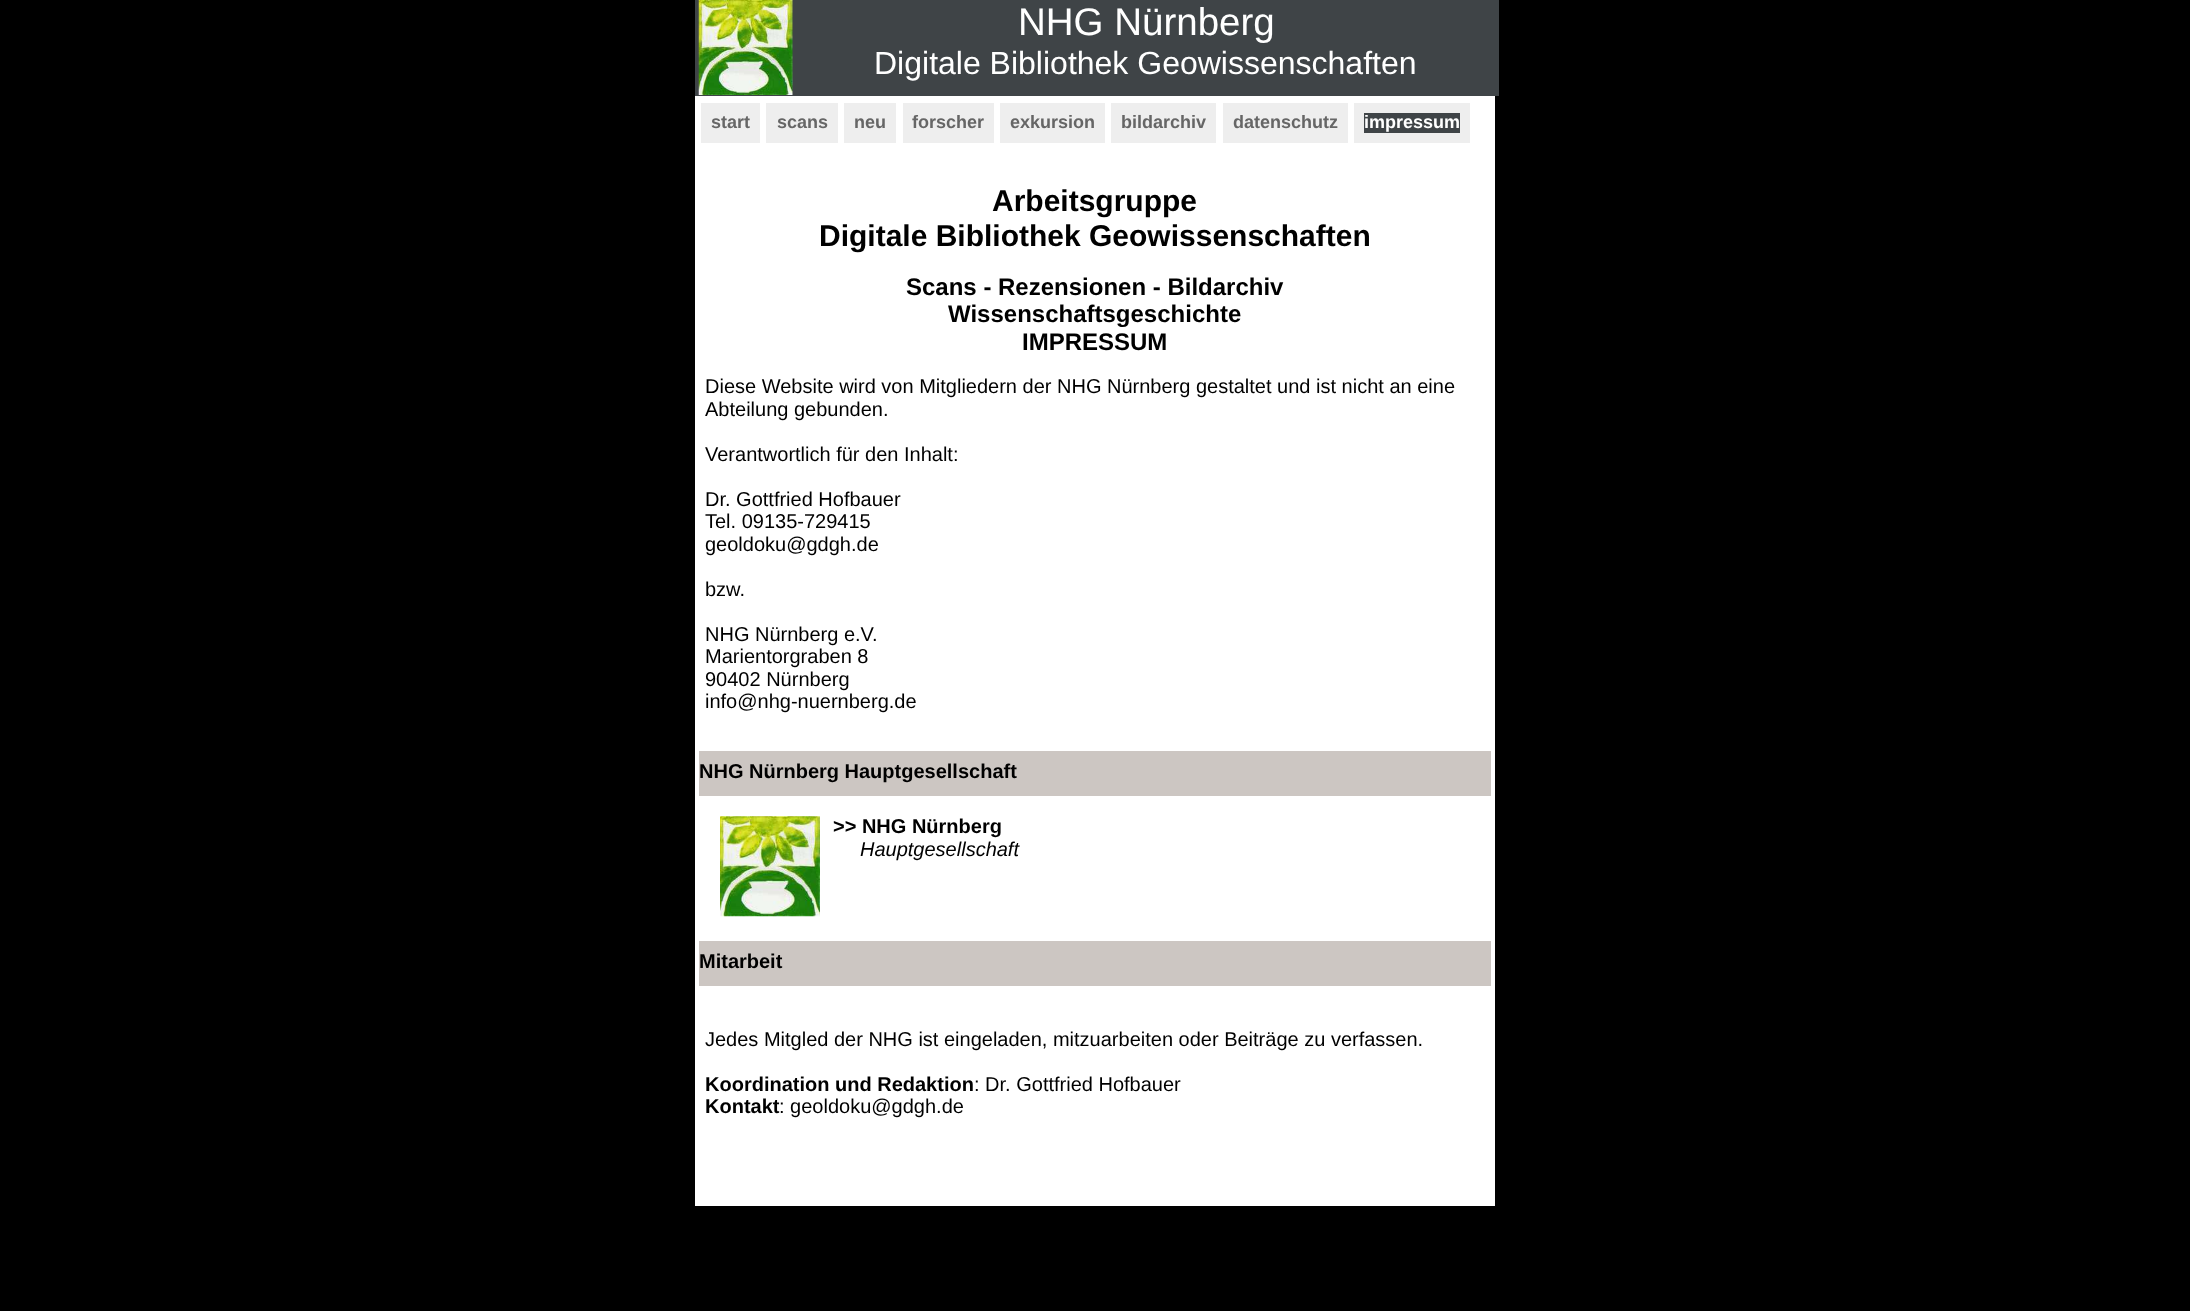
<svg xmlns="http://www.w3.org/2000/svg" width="2190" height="1311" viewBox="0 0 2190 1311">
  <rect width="100%" height="100%" fill="rgb(0,0,0)"/>
  <rect x="695" y="96" width="800" height="1110" fill="rgb(255,255,255)"/>
  <rect x="695" y="0" width="804" height="96" fill="rgb(63,68,71)"/>
  <image x="698" y="0" width="95" height="95" href="pic1.png"/>
  <text x="1018" y="35" font-family="Liberation Sans" font-size="38.5" fill="rgb(255,255,255)">NHG Nürnberg</text>
  <text x="874" y="74" font-family="Liberation Sans" font-size="32" fill="rgb(255,255,255)">Digitale Bibliothek Geowissenschaften</text>
  <rect x="701" y="103" width="59" height="40" fill="rgb(238,238,238)"/>
  <text x="711" y="128" font-family="Liberation Sans" font-size="18" font-weight="bold" fill="rgb(102,102,102)">start</text>
  <rect x="766" y="103" width="72" height="40" fill="rgb(238,238,238)"/>
  <text x="777" y="128" font-family="Liberation Sans" font-size="18" font-weight="bold" fill="rgb(102,102,102)">scans</text>
  <rect x="844" y="103" width="52" height="40" fill="rgb(238,238,238)"/>
  <text x="854" y="128" font-family="Liberation Sans" font-size="18" font-weight="bold" fill="rgb(102,102,102)">neu</text>
  <rect x="903" y="103" width="91" height="40" fill="rgb(238,238,238)"/>
  <text x="912" y="128" font-family="Liberation Sans" font-size="18" font-weight="bold" fill="rgb(102,102,102)">forscher</text>
  <rect x="1000" y="103" width="105" height="40" fill="rgb(238,238,238)"/>
  <text x="1010" y="128" font-family="Liberation Sans" font-size="18" font-weight="bold" fill="rgb(102,102,102)">exkursion</text>
  <rect x="1111" y="103" width="105" height="40" fill="rgb(238,238,238)"/>
  <text x="1121" y="128" font-family="Liberation Sans" font-size="18" font-weight="bold" fill="rgb(102,102,102)">bildarchiv</text>
  <rect x="1223" y="103" width="125" height="40" fill="rgb(238,238,238)"/>
  <text x="1233" y="128" font-family="Liberation Sans" font-size="18" font-weight="bold" fill="rgb(102,102,102)">datenschutz</text>
  <rect x="1354" y="103" width="116" height="40" fill="rgb(238,238,238)"/>
  <rect x="1364" y="113" width="96" height="20" fill="rgb(63,68,71)"/>
  <text x="1364" y="128" font-family="Liberation Sans" font-size="18" font-weight="bold" fill="rgb(255,255,255)">impressum</text>
  <g font-family="Liberation Sans" font-size="30" font-weight="bold" fill="rgb(0,0,0)">
    <text x="992" y="211">Arbeitsgruppe</text>
    <text x="819" y="246">Digitale Bibliothek Geowissenschaften</text>
  </g>
  <g font-family="Liberation Sans" font-size="24" font-weight="bold" fill="rgb(0,0,0)">
    <text x="906" y="295">Scans - Rezensionen - Bildarchiv</text>
    <text x="948" y="322">Wissenschaftsgeschichte</text>
    <text x="1022" y="350">IMPRESSUM</text>
  </g>
  <g font-family="Liberation Sans" font-size="20" fill="rgb(0,0,0)">
    <text>
      <tspan x="705" y="393">Diese Website wird von Mitgliedern der NHG Nürnberg gestaltet und ist nicht an eine</tspan>
      <tspan x="705" y="416">Abteilung gebunden.</tspan>
    </text>
    <text x="705" y="461">Verantwortlich für den Inhalt:</text>
    <text>
      <tspan x="705" y="506">Dr. Gottfried Hofbauer</tspan>
      <tspan x="705" y="528">Tel. 09135-729415</tspan>
      <tspan x="705" y="551">geoldoku@gdgh.de</tspan>
    </text>
    <text x="705" y="596">bzw.</text>
    <text>
      <tspan x="705" y="641">NHG Nürnberg e.V.</tspan>
      <tspan x="705" y="663">Marientorgraben 8</tspan>
      <tspan x="705" y="686">90402 Nürnberg</tspan>
      <tspan x="705" y="708">info@nhg-nuernberg.de</tspan>
    </text>
  </g>
  <rect x="699" y="751" width="792" height="45" fill="rgb(204,198,194)"/>
  <text x="699" y="778" font-family="Liberation Sans" font-size="20" font-weight="bold" fill="rgb(0,0,0)">NHG Nürnberg Hauptgesellschaft</text>
  <image x="720" y="816" width="100" height="101" href="pic2.png"/>
  <text x="833" y="833" font-family="Liberation Sans" font-size="20" font-weight="bold" fill="rgb(0,0,0)">&gt;&gt; NHG Nürnberg</text>
  <text x="860" y="856" font-family="Liberation Sans" font-size="20" font-style="italic" fill="rgb(0,0,0)">Hauptgesellschaft</text>
  <rect x="699" y="941" width="792" height="45" fill="rgb(204,198,194)"/>
  <text x="699" y="968" font-family="Liberation Sans" font-size="20" font-weight="bold" fill="rgb(0,0,0)">Mitarbeit</text>
  <text x="705" y="1046" font-family="Liberation Sans" font-size="20" fill="rgb(0,0,0)">Jedes Mitgled der NHG ist eingeladen, mitzuarbeiten oder Beiträge zu verfassen.</text>
  <text x="705" y="1091" font-family="Liberation Sans" font-size="20" font-weight="bold" fill="rgb(0,0,0)">Koordination und Redaktion</text>
  <text x="974" y="1091" font-family="Liberation Sans" font-size="20" fill="rgb(0,0,0)">: Dr. Gottfried Hofbauer</text>
  <text x="705" y="1113" font-family="Liberation Sans" font-size="20" font-weight="bold" fill="rgb(0,0,0)">Kontakt</text>
  <text x="779" y="1113" font-family="Liberation Sans" font-size="20" fill="rgb(0,0,0)">: geoldoku@gdgh.de</text>
</svg>
